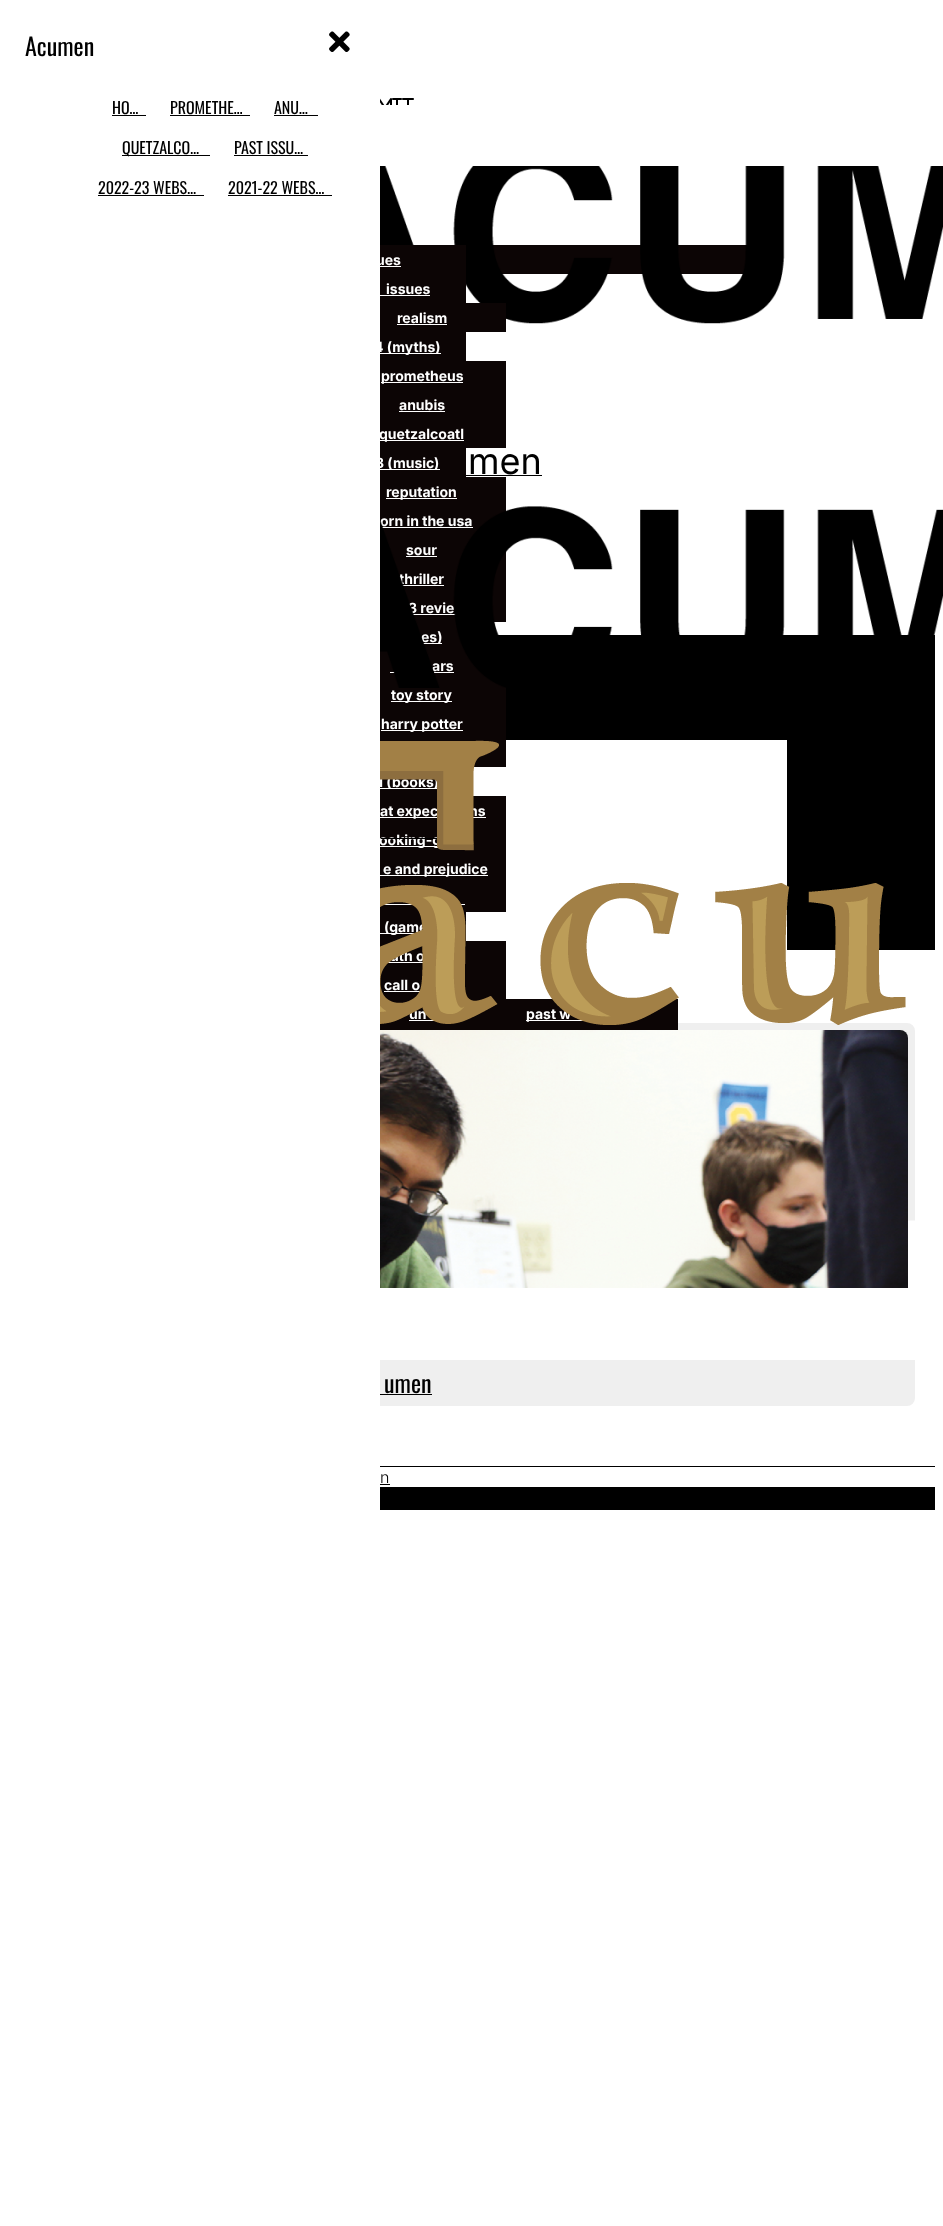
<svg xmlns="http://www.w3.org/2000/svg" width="943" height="2226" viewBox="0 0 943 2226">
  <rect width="100%" height="100%" fill="rgb(255,255,255)"/>
  <rect x="497" y="635" width="438" height="315" fill="rgb(0,0,0)"/>
  <rect x="11.5" y="1026.5" width="900" height="376" rx="4.5" fill="rgb(239,239,239)" stroke="rgb(239,239,239)" stroke-width="7"/>
  <rect x="8" y="1023" width="372" height="383" fill="rgb(255,255,255)"/>
  <text x="25" y="56" font-family="Oswald" font-size="24" fill="rgb(0,0,0)">Acumen</text>
  <image x="329" y="31" width="21" height="21" href="pic1.png"/>
  <text x="112" y="114" font-family="Oswald" font-size="16" fill="rgb(0,0,0)">HO…</text>
  <rect x="112" y="115" width="34" height="1" fill="rgb(0,0,0)"/>
  <text x="170" y="114" font-family="Oswald" font-size="16" fill="rgb(0,0,0)">PROMETHE…</text>
  <rect x="170" y="115" width="80" height="1" fill="rgb(0,0,0)"/>
  <text x="274" y="114" font-family="Oswald" font-size="16" fill="rgb(0,0,0)">ANU…</text>
  <rect x="274" y="115" width="44" height="1" fill="rgb(0,0,0)"/>
  <rect x="122" y="155" width="88" height="1" fill="rgb(0,0,0)"/>
  <g font-family="Oswald" font-size="16" fill="rgb(0,0,0)">
    <text x="122" y="154">QUETZALCO…</text>
    <text x="234" y="154">PAST ISSU…</text>
  </g>
  <rect x="234" y="155" width="74" height="1" fill="rgb(0,0,0)"/>
  <text x="98" y="194" font-family="Oswald" font-size="16" fill="rgb(0,0,0)">2022-23 WEBS…</text>
  <rect x="98" y="195" width="106" height="1" fill="rgb(0,0,0)"/>
  <text x="228" y="194" font-family="Oswald" font-size="16" fill="rgb(0,0,0)">2021-22 WEBS…</text>
  <rect x="228" y="195" width="104" height="1" fill="rgb(0,0,0)"/>
  <rect x="497" y="740" width="290" height="210" fill="rgb(255,255,255)"/>
  <rect x="492" y="245" width="255" height="29" fill="rgb(12,5,5)"/>
  <image x="380" y="166" width="563" height="158" href="pic5.png"/>
  <rect x="380" y="245" width="86" height="696" fill="rgb(12,5,5)"/>
  <rect x="375" y="846" width="63" height="1" fill="rgb(255,255,255)"/>
  <text x="379" y="845" font-family="Inter" font-size="14" font-weight="bold" fill="rgb(255,255,255)">ooking-g</text>
  <rect x="381" y="838" width="56" height="1" fill="rgb(0,0,0)"/>
  <rect x="466" y="680" width="40" height="87" fill="rgb(12,5,5)"/>
  <rect x="380" y="788" width="59" height="1" fill="rgb(255,255,255)"/>
  <text x="377" y="787" font-family="Inter" font-size="14" font-weight="bold" fill="rgb(255,255,255)">1 (books)</text>
  <rect x="466" y="796" width="40" height="116" fill="rgb(12,5,5)"/>
  <rect x="380" y="817" width="106" height="1" fill="rgb(255,255,255)"/>
  <g font-family="Inter" font-size="14" font-weight="bold" fill="rgb(255,255,255)">
    <text x="380" y="816">at expec</text>
    <text x="469" y="816">ns</text>
  </g>
  <rect x="380" y="875" width="108" height="1" fill="rgb(255,255,255)"/>
  <text x="383" y="874" font-family="Inter" font-size="14" font-weight="bold" fill="rgb(255,255,255)">e and prejudice</text>
  <rect x="379" y="904" width="86" height="1" fill="rgb(255,255,255)"/>
  <rect x="380" y="933" width="34" height="1" fill="rgb(255,255,255)"/>
  <text x="384" y="932" font-family="Inter" font-size="14" font-weight="bold" fill="rgb(255,255,255)">(game</text>
  <rect x="380" y="941" width="126" height="58" fill="rgb(12,5,5)"/>
  <text x="390" y="961" font-family="Inter" font-size="14" font-weight="bold" fill="rgb(255,255,255)">uth o</text>
  <rect x="388" y="962" width="35" height="1" fill="rgb(255,255,255)"/>
  <text x="384" y="990" font-family="Inter" font-size="14" font-weight="bold" fill="rgb(255,255,255)">call o</text>
  <rect x="384" y="991" width="36" height="1" fill="rgb(255,255,255)"/>
  <rect x="380" y="999" width="298" height="31" fill="rgb(12,5,5)"/>
  <text x="409" y="1019" font-family="Inter" font-size="14" font-weight="bold" fill="rgb(255,255,255)">un</text>
  <rect x="409" y="1020" width="26" height="1" fill="rgb(255,255,255)"/>
  <rect x="526" y="1020" width="57" height="1" fill="rgb(255,255,255)"/>
  <text x="526" y="1019" font-family="Inter" font-size="14" font-weight="bold" fill="rgb(255,255,255)">past w</text>
  <image x="380" y="740" width="535" height="620" href="pic2.png"/>
  <text x="384" y="1393" font-family="Oswald" font-size="24" fill="rgb(0,0,0)">umen</text>
  <rect x="380" y="1394" width="52" height="1" fill="rgb(0,0,0)"/>
  <image x="380" y="98" width="34" height="7" href="pic3.png"/>
  <rect x="466" y="477" width="40" height="145" fill="rgb(12,5,5)"/>
  <text x="380" y="526" font-family="Inter" font-size="14" font-weight="bold" fill="rgb(255,255,255)">orn in the usa</text>
  <rect x="382" y="527" width="91" height="1" fill="rgb(255,255,255)"/>
  <text x="406" y="555" font-family="Inter" font-size="14" font-weight="bold" fill="rgb(255,255,255)">sour</text>
  <rect x="406" y="556" width="31" height="1" fill="rgb(255,255,255)"/>
  <text x="399" y="584" font-family="Inter" font-size="14" font-weight="bold" fill="rgb(255,255,255)">thriller</text>
  <rect x="399" y="585" width="45" height="1" fill="rgb(255,255,255)"/>
  <text x="408" y="613" font-family="Inter" font-size="14" font-weight="bold" fill="rgb(255,255,255)">3 revie</text>
  <rect x="412" y="614" width="44" height="1" fill="rgb(255,255,255)"/>
  <rect x="423" y="643" width="19" height="1" fill="rgb(255,255,255)"/>
  <text x="421" y="642" font-family="Inter" font-size="14" font-weight="bold" fill="rgb(255,255,255)">es)</text>
  <rect x="466" y="651" width="25" height="29" fill="rgb(12,5,5)"/>
  <text x="432" y="671" font-family="Inter" font-size="14" font-weight="bold" fill="rgb(255,255,255)">ars</text>
  <rect x="390" y="672" width="64" height="1" fill="rgb(255,255,255)"/>
  <image x="380" y="506" width="563" height="182" href="pic4.png"/>
  <text x="376" y="265" font-family="Inter" font-size="14" font-weight="bold" fill="rgb(255,255,255)">ues</text>
  <rect x="380" y="266" width="21" height="1" fill="rgb(255,255,255)"/>
  <text x="386" y="294" font-family="Inter" font-size="14" font-weight="bold" fill="rgb(255,255,255)">issues</text>
  <rect x="380" y="295" width="50" height="1" fill="rgb(255,255,255)"/>
  <rect x="466" y="303" width="40" height="29" fill="rgb(12,5,5)"/>
  <text x="397" y="323" font-family="Inter" font-size="14" font-weight="bold" fill="rgb(255,255,255)">realism</text>
  <rect x="397" y="324" width="50" height="1" fill="rgb(255,255,255)"/>
  <rect x="380" y="353" width="61" height="1" fill="rgb(255,255,255)"/>
  <text x="374" y="352" font-family="Inter" font-size="14" font-weight="bold" fill="rgb(255,255,255)">4 (myths)</text>
  <rect x="466" y="361" width="40" height="87" fill="rgb(12,5,5)"/>
  <rect x="381" y="382" width="82" height="1" fill="rgb(255,255,255)"/>
  <g font-family="Inter" font-size="14" font-weight="bold" fill="rgb(255,255,255)">
    <text x="381" y="381">prometheus</text>
    <text x="399" y="410">anubis</text>
  </g>
  <rect x="399" y="411" width="46" height="1" fill="rgb(255,255,255)"/>
  <rect x="379" y="440" width="85" height="1" fill="rgb(255,255,255)"/>
  <text x="379" y="439" font-family="Inter" font-size="14" font-weight="bold" fill="rgb(255,255,255)">quetzalcoatl</text>
  <rect x="380" y="469" width="60" height="1" fill="rgb(255,255,255)"/>
  <text x="375" y="468" font-family="Inter" font-size="14" font-weight="bold" fill="rgb(255,255,255)">3 (music)</text>
  <rect x="386" y="498" width="71" height="1" fill="rgb(255,255,255)"/>
  <text x="386" y="497" font-family="Inter" font-size="14" font-weight="bold" fill="rgb(255,255,255)">reputation</text>
  <rect x="391" y="701" width="61" height="1" fill="rgb(255,255,255)"/>
  <text x="391" y="700" font-family="Inter" font-size="14" font-weight="bold" fill="rgb(255,255,255)">toy story</text>
  <rect x="381" y="730" width="82" height="1" fill="rgb(255,255,255)"/>
  <text x="381" y="729" font-family="Inter" font-size="14" font-weight="bold" fill="rgb(255,255,255)">harry potter</text>
  <text x="468" y="474" font-family="Inter" font-size="36" fill="rgb(0,0,0)">men</text>
  <rect x="466" y="475" width="76" height="1" fill="rgb(0,0,0)"/>
  <rect x="380" y="1466" width="555" height="1" fill="rgb(0,0,0)"/>
  <image x="380" y="1030" width="528" height="258" href="pic6.png"/>
  <rect x="380" y="1487" width="555" height="23" fill="rgb(0,0,0)"/>
  <text x="380" y="1483" font-family="Inter" font-size="16" font-weight="300" fill="rgb(0,0,0)">n</text>
  <rect x="380" y="1484" width="10" height="1" fill="rgb(0,0,0)"/>
</svg>
